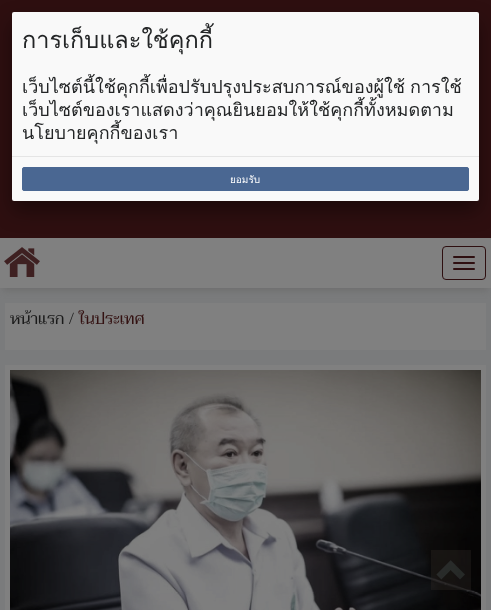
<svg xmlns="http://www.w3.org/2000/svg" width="491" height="610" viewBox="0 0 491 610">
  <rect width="100%" height="100%" fill="rgb(122,123,124)"/>
  <rect x="0" y="0" width="491" height="238" fill="rgb(46,15,16)"/>
  <rect x="3" y="247" width="485" height="44" fill="rgb(111,111,111)" filter="blur(3px)"/>
  <rect x="0" y="238" width="491" height="50" fill="rgb(128,128,128)"/>
  <rect x="12" y="22" width="467" height="189" rx="2" fill="rgba(0,0,0,0.4)" filter="blur(10px)"/>
  <rect x="12" y="12" width="467" height="189" rx="2" fill="rgb(249,249,249)"/>
  <text x="22" y="48" font-family="Loma" font-size="23.5" fill="rgb(35,37,38)">การเก็บและใช้คุกกี้</text>
  <g font-family="Loma" font-size="18" fill="rgb(35,37,38)">
    <text>
      <tspan x="22" y="93" word-spacing="-1">เว็บไซต์นี้ใช้คุกกี้เพื่อปรับปรุงประสบการณ์ของผู้ใช้ การใช้</tspan>
      <tspan x="22" y="116">เว็บไซต์ของเราแสดงว่าคุณยินยอมให้ใช้คุกกี้ทั้งหมดตาม</tspan>
      <tspan x="22" y="139">นโยบายคุกกี้ของเรา</tspan>
    </text>
  </g>
  <rect x="12" y="156" width="467" height="1" fill="rgb(229,229,229)"/>
  <rect x="22.5" y="167.5" width="446" height="23" rx="1.5" fill="rgb(74,103,146)" stroke="rgb(74,103,146)"/>
  <text x="230" y="183" font-family="Loma" font-size="10" fill="rgb(255,255,255)">ยอมรับ</text>
  <image x="4" y="247" width="36" height="30" href="pic1.png"/>
  <rect x="442.5" y="246.5" width="43" height="33" rx="3.5" fill="none" stroke="rgb(46,15,16)"/>
  <rect x="453" y="256" width="22" height="2" rx="1" fill="rgb(46,15,16)"/>
  <rect x="453" y="262" width="22" height="2" rx="1" fill="rgb(46,15,16)"/>
  <rect x="453" y="268" width="22" height="2" rx="1" fill="rgb(46,15,16)"/>
  <rect x="5" y="303" width="481" height="47" fill="rgb(128,128,128)"/>
  <text x="10" y="324" font-family="Taviraj" font-size="16" fill="rgb(26,26,26)">หน้าแรก /</text>
  <text x="79" y="324" font-family="Taviraj" font-size="16" fill="rgb(51,17,17)">ในประเทศ</text>
  <rect x="5" y="365" width="481" height="245" fill="rgb(128,128,128)"/>
  <image x="10" y="370" width="471" height="240" href="pic2.png"/>
  <rect x="431" y="550" width="40" height="40" fill="rgba(55,75,64,0.11)"/>
  <image x="431" y="550" width="40" height="40" href="pic3.png"/>
  <rect x="431" y="550" width="40" height="40" fill="rgba(55,75,64,0.11)"/>
  <image x="431" y="550" width="40" height="40" href="pic4.png"/>
</svg>
